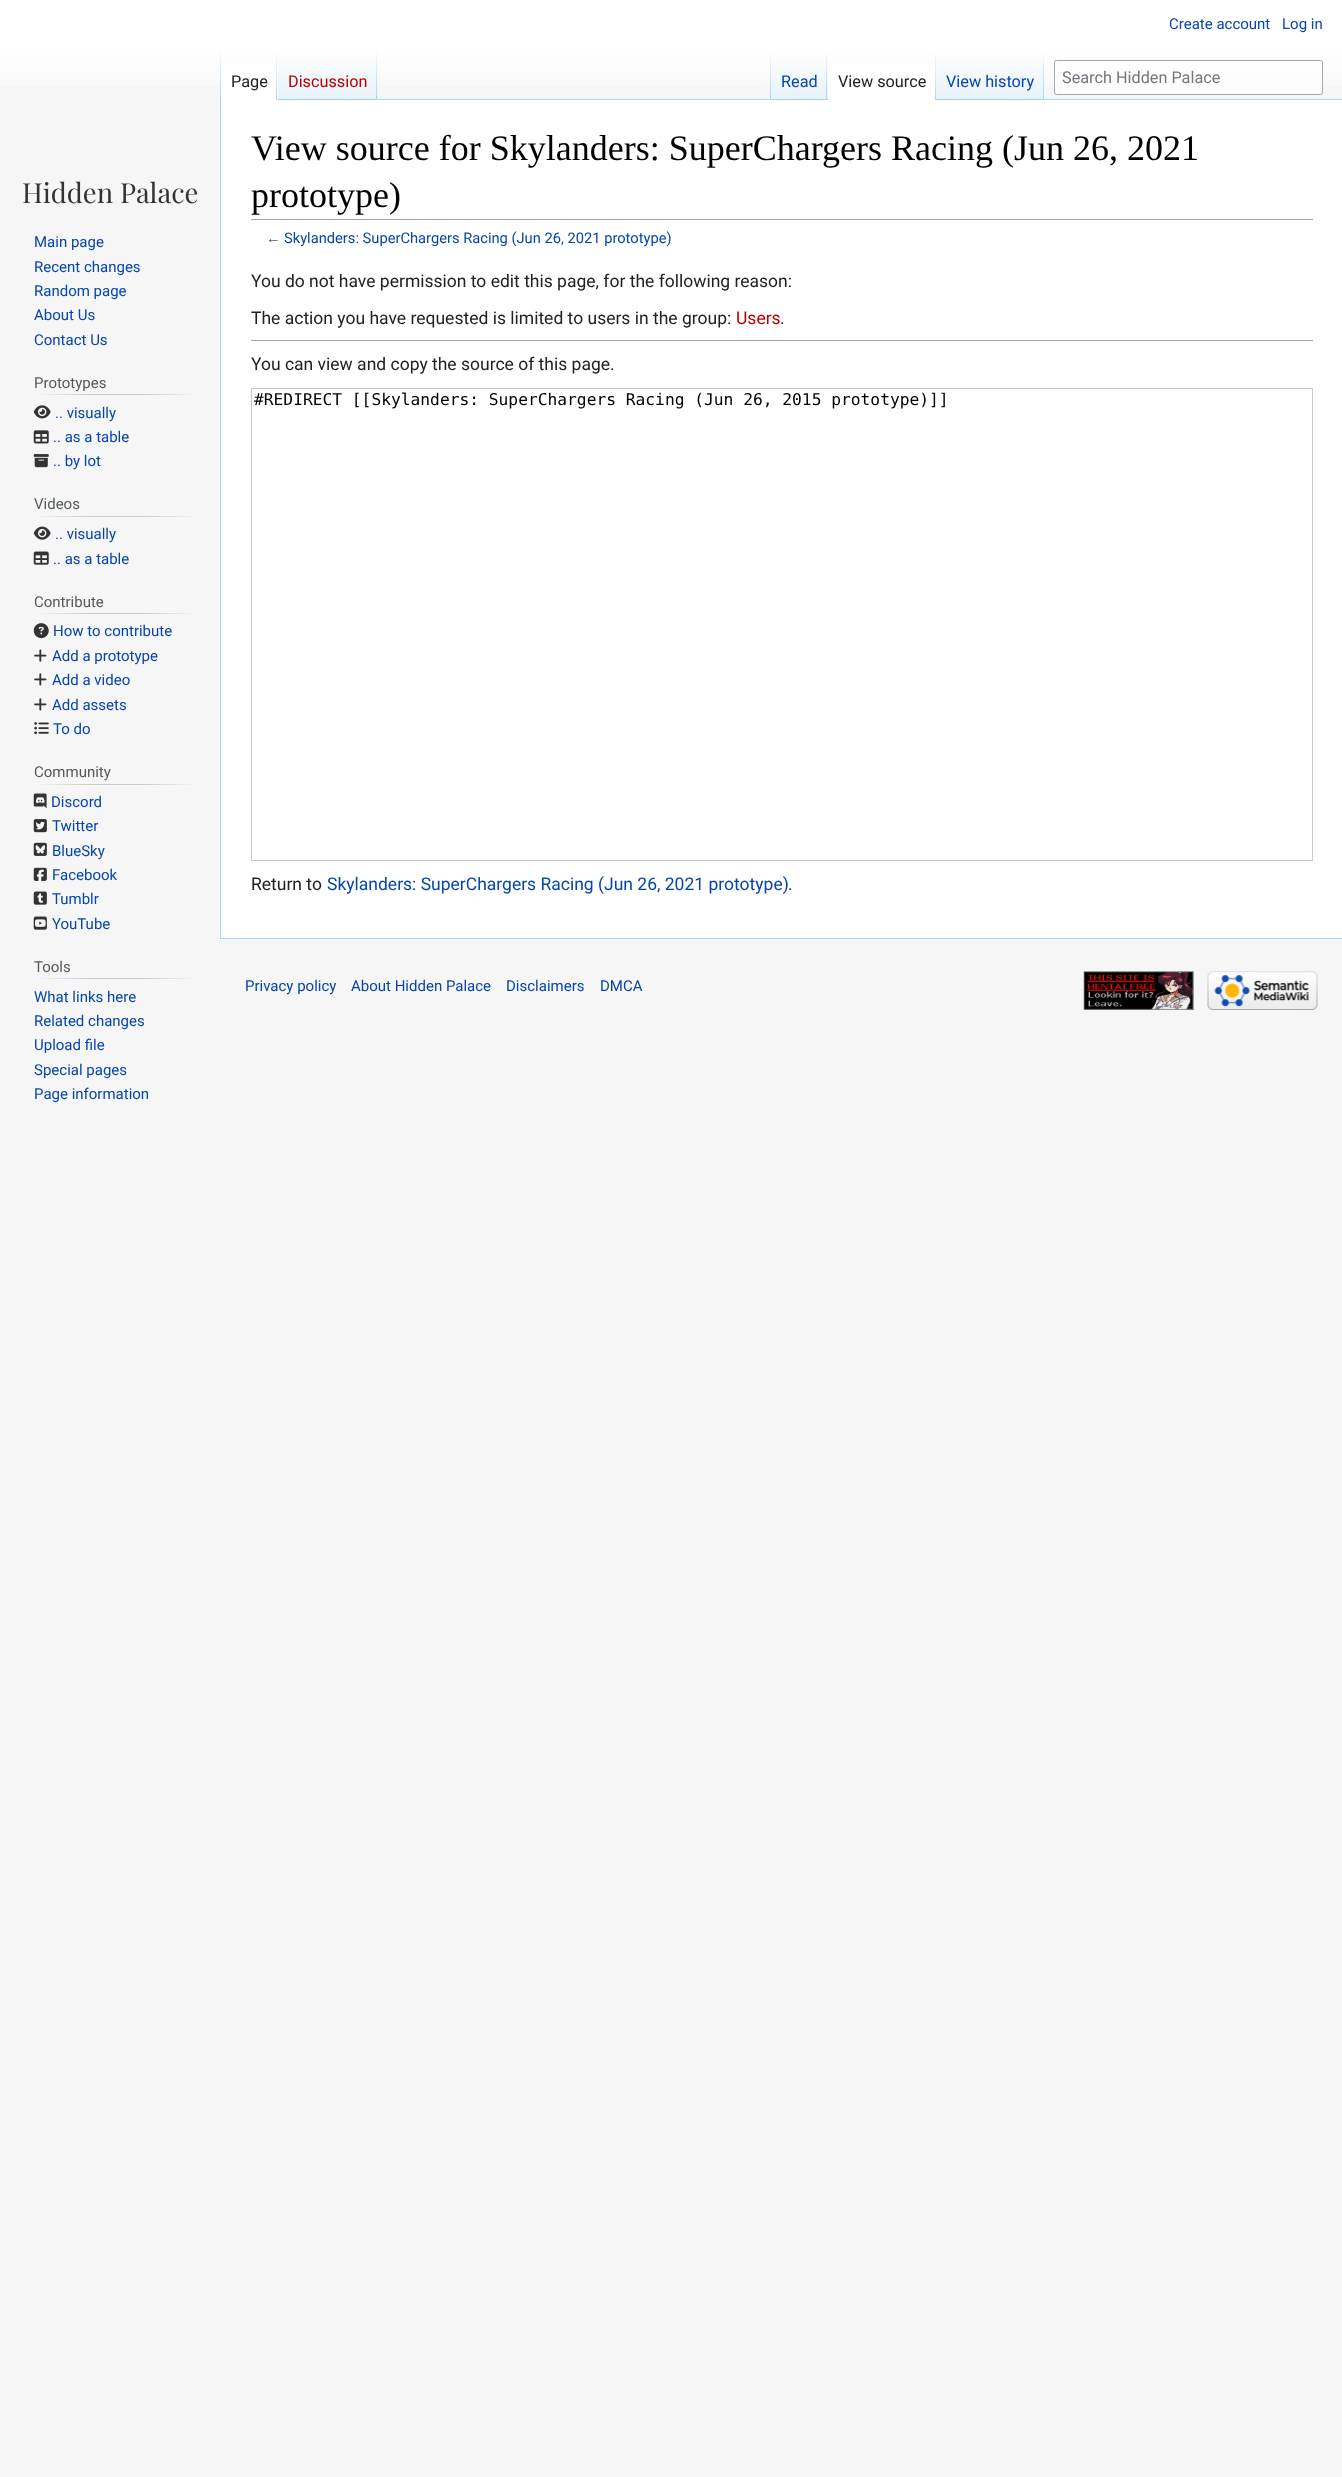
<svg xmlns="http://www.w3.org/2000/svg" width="1342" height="2477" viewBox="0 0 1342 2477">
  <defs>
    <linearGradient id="g1" gradientUnits="userSpaceOnUse" x1="671" y1="0" x2="671" y2="100"><stop offset="0.5" stop-color="rgb(255,255,255)"/><stop offset="1" stop-color="rgb(246,246,246)"/></linearGradient>
    <linearGradient id="g2" gradientUnits="userSpaceOnUse" x1="221" y1="50" x2="221" y2="100"><stop offset="0" stop-color="rgb(167,215,249)" stop-opacity="0"/><stop offset="1" stop-color="rgb(167,215,249)"/></linearGradient>
    <linearGradient id="g3" gradientUnits="userSpaceOnUse" x1="277" y1="50" x2="277" y2="100"><stop offset="0" stop-color="rgb(255,255,255)"/><stop offset="1" stop-color="rgb(167,215,249)"/></linearGradient>
    <linearGradient id="g4" gradientUnits="userSpaceOnUse" x1="328" y1="100" x2="328" y2="50"><stop offset="0" stop-color="rgb(119,193,246)"/><stop offset="0.03" stop-color="rgb(232,242,248)"/><stop offset="1" stop-color="rgb(255,255,255)"/></linearGradient>
    <linearGradient id="g5" gradientUnits="userSpaceOnUse" x1="377" y1="50" x2="377" y2="100"><stop offset="0" stop-color="rgb(167,215,249)" stop-opacity="0"/><stop offset="1" stop-color="rgb(167,215,249)"/></linearGradient>
    <linearGradient id="g6" gradientUnits="userSpaceOnUse" x1="771" y1="50" x2="771" y2="100"><stop offset="0" stop-color="rgb(167,215,249)" stop-opacity="0"/><stop offset="1" stop-color="rgb(167,215,249)"/></linearGradient>
    <linearGradient id="g7" gradientUnits="userSpaceOnUse" x1="799" y1="100" x2="799" y2="50"><stop offset="0" stop-color="rgb(119,193,246)"/><stop offset="0.03" stop-color="rgb(232,242,248)"/><stop offset="1" stop-color="rgb(255,255,255)"/></linearGradient>
    <linearGradient id="g8" gradientUnits="userSpaceOnUse" x1="827" y1="50" x2="827" y2="100"><stop offset="0" stop-color="rgb(167,215,249)" stop-opacity="0"/><stop offset="1" stop-color="rgb(167,215,249)"/></linearGradient>
    <linearGradient id="g9" gradientUnits="userSpaceOnUse" x1="936" y1="50" x2="936" y2="100"><stop offset="0" stop-color="rgb(255,255,255)"/><stop offset="1" stop-color="rgb(167,215,249)"/></linearGradient>
    <linearGradient id="g10" gradientUnits="userSpaceOnUse" x1="990" y1="100" x2="990" y2="50"><stop offset="0" stop-color="rgb(119,193,246)"/><stop offset="0.03" stop-color="rgb(232,242,248)"/><stop offset="1" stop-color="rgb(255,255,255)"/></linearGradient>
    <linearGradient id="g11" gradientUnits="userSpaceOnUse" x1="1043" y1="50" x2="1043" y2="100"><stop offset="0" stop-color="rgb(167,215,249)" stop-opacity="0"/><stop offset="1" stop-color="rgb(167,215,249)"/></linearGradient>
    <linearGradient id="g12" gradientUnits="userSpaceOnUse" x1="34" y1="394" x2="198" y2="394"><stop offset="0" stop-color="rgb(246,246,246)"/><stop offset="0.33" stop-color="rgb(200,204,209)"/><stop offset="0.66" stop-color="rgb(200,204,209)"/><stop offset="1" stop-color="rgb(246,246,246)"/></linearGradient>
    <linearGradient id="g13" gradientUnits="userSpaceOnUse" x1="34" y1="517" x2="198" y2="517"><stop offset="0" stop-color="rgb(246,246,246)"/><stop offset="0.33" stop-color="rgb(200,204,209)"/><stop offset="0.66" stop-color="rgb(200,204,209)"/><stop offset="1" stop-color="rgb(246,246,246)"/></linearGradient>
    <linearGradient id="g14" gradientUnits="userSpaceOnUse" x1="34" y1="613" x2="198" y2="613"><stop offset="0" stop-color="rgb(246,246,246)"/><stop offset="0.33" stop-color="rgb(200,204,209)"/><stop offset="0.66" stop-color="rgb(200,204,209)"/><stop offset="1" stop-color="rgb(246,246,246)"/></linearGradient>
    <linearGradient id="g15" gradientUnits="userSpaceOnUse" x1="34" y1="784" x2="198" y2="784"><stop offset="0" stop-color="rgb(246,246,246)"/><stop offset="0.33" stop-color="rgb(200,204,209)"/><stop offset="0.66" stop-color="rgb(200,204,209)"/><stop offset="1" stop-color="rgb(246,246,246)"/></linearGradient>
    <linearGradient id="g16" gradientUnits="userSpaceOnUse" x1="34" y1="978" x2="198" y2="978"><stop offset="0" stop-color="rgb(246,246,246)"/><stop offset="0.33" stop-color="rgb(200,204,209)"/><stop offset="0.66" stop-color="rgb(200,204,209)"/><stop offset="1" stop-color="rgb(246,246,246)"/></linearGradient>
  </defs>
  <rect width="100%" height="100%" fill="rgb(246,246,246)"/>
  <rect x="0" y="0" width="1342" height="86" fill="url(#g1)"/>
  <g font-family="Roboto" font-size="15" fill="rgb(6,69,173)">
    <text x="1169" y="29">Create account</text>
    <text x="1282" y="29">Log in</text>
  </g>
  <rect x="220" y="938" width="1122" height="1" fill="rgb(167,215,249)"/>
  <rect x="220" y="99" width="1" height="840" fill="rgb(167,215,249)"/>
  <rect x="220" y="50" width="1" height="50" fill="url(#g2)"/>
  <rect x="221" y="64" width="57" height="36" fill="rgb(255,255,255)"/>
  <rect x="276" y="50" width="1" height="50" fill="url(#g3)"/>
  <text x="231" y="87" font-family="Roboto" font-size="16.25" fill="rgb(32,33,34)">Page</text>
  <rect x="278" y="57" width="100" height="43" fill="url(#g4)"/>
  <rect x="376" y="50" width="1" height="50" fill="url(#g5)"/>
  <text x="288" y="87" font-family="Roboto" font-size="16.25" fill="rgb(186,0,0)">Discussion</text>
  <rect x="378" y="99" width="964" height="1" fill="rgb(167,215,249)"/>
  <rect x="770" y="50" width="1" height="50" fill="url(#g6)"/>
  <rect x="771" y="57" width="57" height="43" fill="url(#g7)"/>
  <rect x="826" y="50" width="1" height="50" fill="url(#g8)"/>
  <text x="781" y="87" font-family="Roboto" font-size="16.25" fill="rgb(6,69,173)">Read</text>
  <rect x="828" y="64" width="107" height="36" fill="rgb(255,255,255)"/>
  <rect x="935" y="50" width="1" height="50" fill="url(#g9)"/>
  <text x="838" y="87" font-family="Roboto" font-size="16.25" fill="rgb(32,33,34)">View source</text>
  <rect x="936" y="57" width="108" height="43" fill="url(#g10)"/>
  <rect x="1043" y="50" width="1" height="50" fill="url(#g11)"/>
  <text x="946" y="87" font-family="Roboto" font-size="16.25" fill="rgb(6,69,173)">View history</text>
  <rect x="1054.5" y="60.5" width="268" height="34" rx="2" fill="rgba(255,255,255,0.5)" stroke="rgb(162,169,177)"/>
  <text x="1062" y="83" font-family="Roboto" font-size="16.25" fill="rgb(114,119,125)">Search Hidden Palace</text>
  <text x="22" y="203" font-family="Playfair Display" font-size="27.5" fill="rgb(51,51,51)">Hidden Palace</text>
  <g font-family="Roboto" font-size="15" fill="rgb(6,69,173)">
    <text>
      <tspan x="34" y="247">Main page</tspan>
      <tspan x="34" y="272">Recent changes</tspan>
      <tspan x="34" y="296">Random page</tspan>
      <tspan x="34" y="320">About Us</tspan>
      <tspan x="34" y="345">Contact Us</tspan>
    </text>
  </g>
  <rect x="34" y="394" width="164" height="1" fill="url(#g12)"/>
  <text x="34" y="388" font-family="Roboto" font-size="15" fill="rgb(84,89,93)">Prototypes</text>
  <image x="33" y="405" width="18" height="14" href="pic1.png"/>
  <text x="55" y="418" font-family="Roboto" font-size="15" fill="rgb(6,69,173)">.. visually</text>
  <image x="33" y="430" width="16" height="14" href="pic2.png"/>
  <text x="53" y="442" font-family="Roboto" font-size="15" fill="rgb(6,69,173)">.. as a table</text>
  <image x="33" y="454" width="16" height="14" href="pic3.png"/>
  <text x="53" y="466" font-family="Roboto" font-size="15" fill="rgb(6,69,173)">.. by lot</text>
  <rect x="34" y="516" width="164" height="1" fill="url(#g13)"/>
  <text x="34" y="509" font-family="Roboto" font-size="15" fill="rgb(84,89,93)">Videos</text>
  <image x="33" y="526" width="18" height="14" href="pic4.png"/>
  <text x="55" y="539" font-family="Roboto" font-size="15" fill="rgb(6,69,173)">.. visually</text>
  <image x="33" y="551" width="16" height="14" href="pic5.png"/>
  <text x="53" y="564" font-family="Roboto" font-size="15" fill="rgb(6,69,173)">.. as a table</text>
  <rect x="34" y="613" width="164" height="1" fill="url(#g14)"/>
  <text x="34" y="607" font-family="Roboto" font-size="15" fill="rgb(84,89,93)">Contribute</text>
  <image x="33" y="623" width="16" height="16" href="pic6.png"/>
  <text x="53" y="636" font-family="Roboto" font-size="15" fill="rgb(6,69,173)">How to contribute</text>
  <image x="34" y="649" width="13" height="13" href="pic7.png"/>
  <text x="52" y="661" font-family="Roboto" font-size="15" fill="rgb(6,69,173)">Add a prototype</text>
  <image x="34" y="673" width="13" height="13" href="pic8.png"/>
  <text x="52" y="685" font-family="Roboto" font-size="15" fill="rgb(6,69,173)">Add a video</text>
  <image x="34" y="698" width="13" height="13" href="pic8.png"/>
  <text x="52" y="710" font-family="Roboto" font-size="15" fill="rgb(6,69,173)">Add assets</text>
  <image x="34" y="722" width="15" height="13" href="pic9.png"/>
  <text x="53" y="734" font-family="Roboto" font-size="15" fill="rgb(6,69,173)">To do</text>
  <rect x="34" y="784" width="164" height="1" fill="url(#g15)"/>
  <text x="34" y="777" font-family="Roboto" font-size="15" fill="rgb(84,89,93)">Community</text>
  <image x="33" y="793" width="14" height="16" href="pic10.png"/>
  <text x="51" y="807" font-family="Roboto" font-size="15" fill="rgb(6,69,173)">Discord</text>
  <image x="33" y="819" width="14" height="14" href="pic11.png"/>
  <text x="52" y="831" font-family="Roboto" font-size="15" fill="rgb(6,69,173)">Twitter</text>
  <image x="33" y="842" width="14" height="14" href="pic12.png"/>
  <text x="52" y="856" font-family="Roboto" font-size="15" fill="rgb(6,69,173)">BlueSky</text>
  <image x="33" y="867" width="14" height="14" href="pic13.png"/>
  <text x="52" y="880" font-family="Roboto" font-size="15" fill="rgb(6,69,173)">Facebook</text>
  <image x="33" y="891" width="14" height="14" href="pic14.png"/>
  <text x="52" y="904" font-family="Roboto" font-size="15" fill="rgb(6,69,173)">Tumblr</text>
  <image x="33" y="916" width="14" height="14" href="pic15.png"/>
  <text x="52" y="929" font-family="Roboto" font-size="15" fill="rgb(6,69,173)">YouTube</text>
  <rect x="34" y="978" width="164" height="1" fill="url(#g16)"/>
  <text x="34" y="972" font-family="Roboto" font-size="15" fill="rgb(84,89,93)">Tools</text>
  <g font-family="Roboto" font-size="15" fill="rgb(6,69,173)">
    <text>
      <tspan x="34" y="1002">What links here</tspan>
      <tspan x="34" y="1026">Related changes</tspan>
      <tspan x="34" y="1050">Upload file</tspan>
      <tspan x="34" y="1075">Special pages</tspan>
      <tspan x="34" y="1099">Page information</tspan>
    </text>
  </g>
  <rect x="221" y="100" width="1121" height="838" fill="rgb(255,255,255)"/>
  <rect x="251" y="219" width="1062" height="1" fill="rgb(162,169,177)"/>
  <g font-family="Liberation Serif" font-size="36" fill="rgb(0,0,0)">
    <text>
      <tspan x="251" y="160">View source for Skylanders: SuperChargers Racing (Jun 26, 2021</tspan>
      <tspan x="251" y="207">prototype)</tspan>
    </text>
  </g>
  <text x="266" y="243" font-family="Liberation Sans" font-size="14.7" fill="rgb(84,89,93)">←</text>
  <text x="284" y="243" font-family="Roboto" font-size="14.7" fill="rgb(6,69,173)">Skylanders: SuperChargers Racing (Jun 26, 2021 prototype)</text>
  <g font-family="Roboto" font-size="17.5" fill="rgb(32,33,34)">
    <text x="251" y="287">You do not have permission to edit this page, for the following reason:</text>
    <text x="251" y="324">The action you have requested is limited to users in the group:</text>
  </g>
  <text x="736" y="324" font-family="Roboto" font-size="17.5" fill="rgb(186,0,0)">Users</text>
  <text x="780" y="324" font-family="Roboto" font-size="17.5" fill="rgb(32,33,34)">.</text>
  <rect x="251" y="340" width="1062" height="1" fill="rgb(162,169,177)"/>
  <text x="251" y="370" font-family="Roboto" font-size="17.5" fill="rgb(32,33,34)">You can view and copy the source of this page.</text>
  <rect x="251.5" y="388.5" width="1061" height="472" fill="none" stroke="rgb(200,204,209)"/>
  <text x="254" y="405" font-family="DejaVu Sans Mono" font-size="16.25" fill="rgb(0,0,0)">#REDIRECT [[Skylanders: SuperChargers Racing (Jun 26, 2015 prototype)]]</text>
  <text x="251" y="890" font-family="Roboto" font-size="17.5" fill="rgb(32,33,34)">Return to</text>
  <text x="327" y="890" font-family="Roboto" font-size="17.5" fill="rgb(6,69,173)">Skylanders: SuperChargers Racing (Jun 26, 2021 prototype)</text>
  <text x="788" y="890" font-family="Roboto" font-size="17.5" fill="rgb(32,33,34)">.</text>
  <g font-family="Roboto" font-size="15" fill="rgb(6,69,173)">
    <text x="245" y="991">Privacy policy</text>
    <text x="351" y="991">About Hidden Palace</text>
    <text x="506" y="991">Disclaimers</text>
    <text x="600" y="991">DMCA</text>
  </g>
  <image x="1083" y="971" width="111" height="39" href="pic16.png"/>
  <image x="1207" y="971" width="111" height="39" href="pic17.png"/>
</svg>
